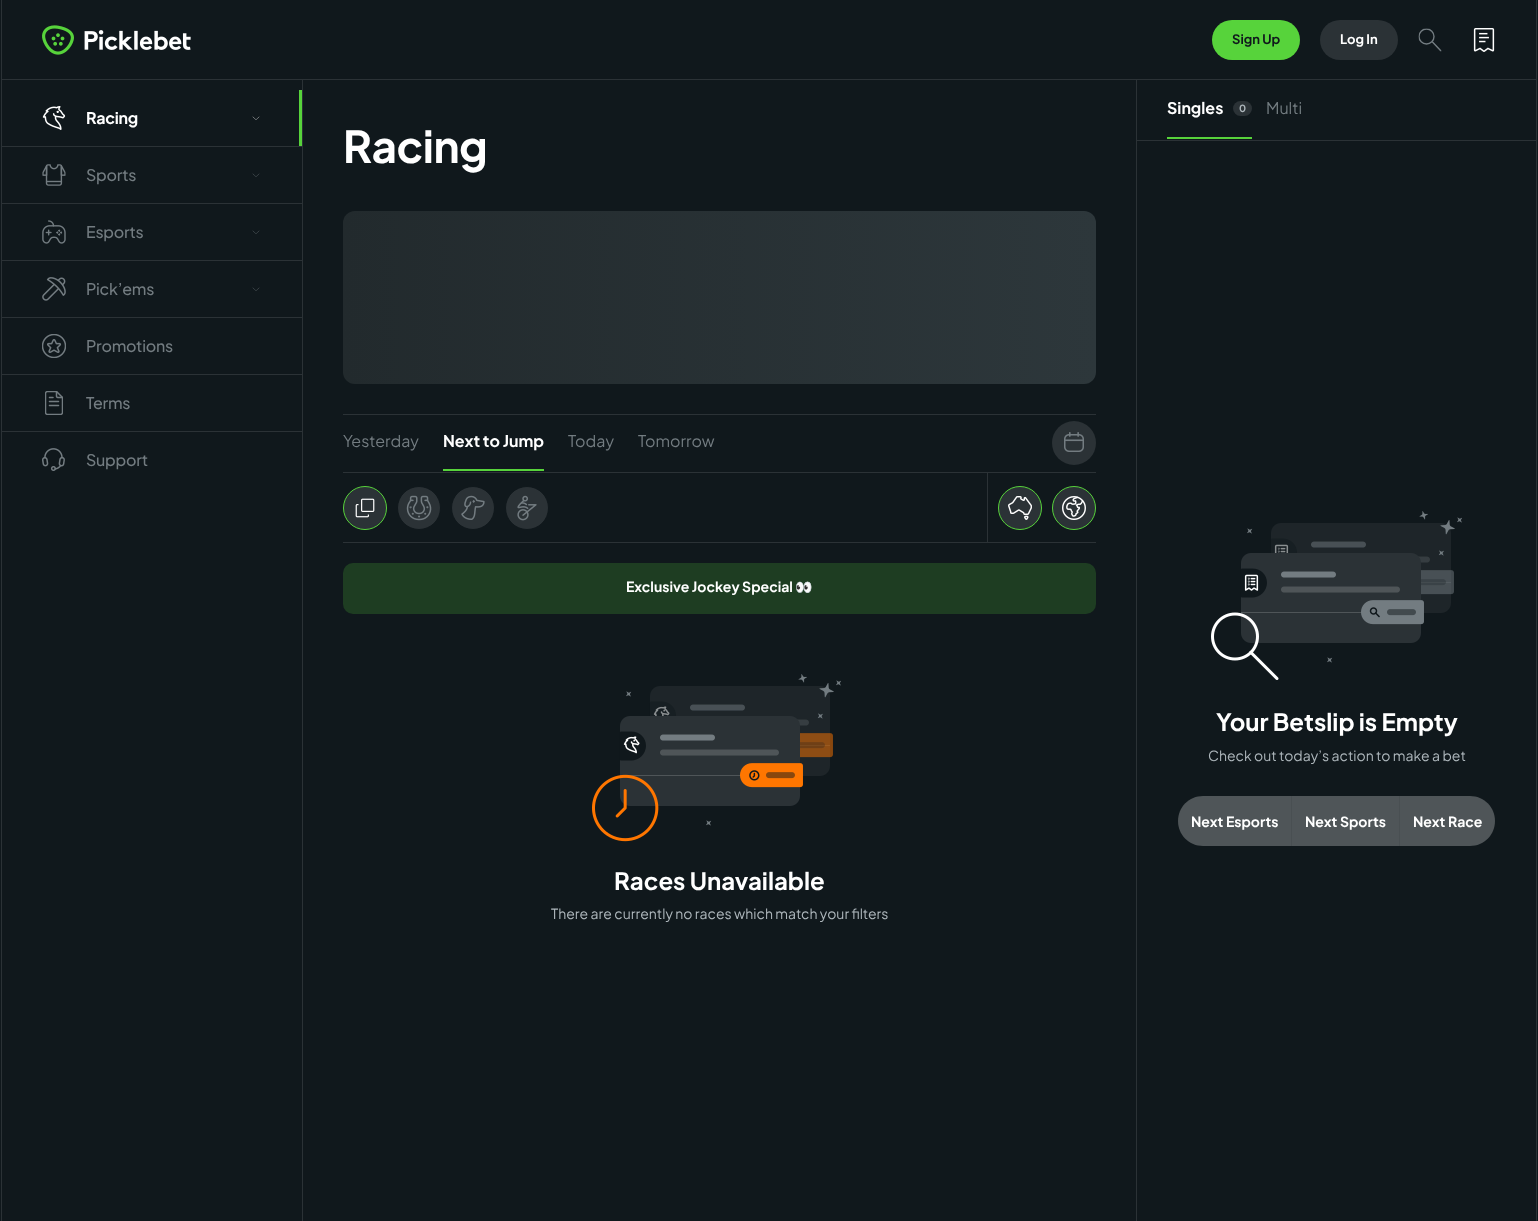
<svg xmlns="http://www.w3.org/2000/svg" width="1538" height="1221" viewBox="0 0 1538 1221">
  <defs>
    <clipPath id="clip1"><path d="M1418.5 28.5H1441.5V51.5H1418.5Z"/></clipPath>
    <linearGradient id="g1" gradientUnits="userSpaceOnUse" x1="-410" y1="298" x2="1096" y2="297"><stop offset="0" stop-color="rgb(45,55,59)"/><stop offset="0.5" stop-color="rgb(34,42,45)"/><stop offset="1" stop-color="rgb(45,55,59)"/></linearGradient>
  </defs>
  <rect width="100%" height="100%" fill="rgb(16,24,28)"/>
  <rect x="1536" y="0" width="1" height="1221" fill="rgb(43,50,54)"/>
  <rect x="1" y="79" width="1536" height="1" fill="rgb(43,50,54)"/>
  <rect x="1" y="0" width="1" height="80" fill="rgb(43,50,54)"/>
  <image x="42" y="25" width="32" height="30" href="pic1.png"/>
  <image x="51" y="33" width="14" height="13" href="pic2.png"/>
  <image x="84" y="30" width="107" height="20" href="pic3.png"/>
  <rect x="1212" y="20" width="88" height="40" rx="20" fill="rgb(87,211,59)"/>
  <text x="1232" y="44" font-family="Plus Jakarta Sans" font-size="13" font-weight="bold" fill="rgb(16,24,28)">Sign Up</text>
  <rect x="1320" y="20" width="78" height="40" rx="20" fill="rgb(43,50,54)"/>
  <text x="1340" y="44" font-family="Plus Jakarta Sans" font-size="13" font-weight="bold" fill="rgb(255,255,255)">Log In</text>
  <g clip-path="url(#clip1)">
    <circle cx="1426.5" cy="36.5" r="7.5" fill="none" stroke="rgb(115,124,129)" stroke-width="1.4"/>
    <path d="M1432.5 42L1441 51" fill="none" stroke="rgb(115,124,129)" stroke-width="1.4" stroke-linecap="round" stroke-linejoin="round"/>
  </g>
  <image x="1473" y="28" width="22" height="24" href="pic4.png"/>
  <rect x="1" y="80" width="1" height="1141" fill="rgb(43,50,54)"/>
  <rect x="302" y="80" width="1" height="1141" fill="rgb(43,50,54)"/>
  <rect x="2" y="146" width="300" height="1" fill="rgb(43,50,54)"/>
  <rect x="299" y="90" width="3" height="56" fill="rgb(87,211,59)"/>
  <image x="42" y="106" width="24" height="24" href="pic5.png"/>
  <text x="86" y="124" font-family="Plus Jakarta Sans" font-size="16" font-weight="bold" letter-spacing="-0.25" fill="rgb(255,255,255)">Racing</text>
  <path d="M259 117C255 120.5 257 120.5 253 117" fill="none" stroke="rgb(255,255,255)" stroke-width="0.4" stroke-linecap="round" stroke-linejoin="round"/>
  <rect x="2" y="203" width="300" height="1" fill="rgb(43,50,54)"/>
  <image x="42" y="164" width="24" height="22" href="pic6.png"/>
  <text x="86" y="181" font-family="Plus Jakarta Sans" font-size="16" font-weight="500" letter-spacing="-0.25" fill="rgb(115,124,129)">Sports</text>
  <path d="M259 174C255 177.5 257 177.5 253 174" fill="none" stroke="rgb(115,124,129)" stroke-width="0.4" stroke-linecap="round" stroke-linejoin="round"/>
  <rect x="2" y="260" width="300" height="1" fill="rgb(43,50,54)"/>
  <image x="42" y="220" width="24" height="24" href="pic7.png"/>
  <text x="86" y="238" font-family="Plus Jakarta Sans" font-size="16" font-weight="500" letter-spacing="-0.25" fill="rgb(115,124,129)">Esports</text>
  <path d="M259 231C255 234.5 257 234.5 253 231" fill="none" stroke="rgb(115,124,129)" stroke-width="0.4" stroke-linecap="round" stroke-linejoin="round"/>
  <rect x="2" y="317" width="300" height="1" fill="rgb(43,50,54)"/>
  <image x="42" y="277" width="24" height="24" href="pic8.png"/>
  <text x="86" y="295" font-family="Plus Jakarta Sans" font-size="16" font-weight="500" letter-spacing="-0.25" fill="rgb(115,124,129)">Pick’ems</text>
  <path d="M259 288C255 291.5 257 291.5 253 288" fill="none" stroke="rgb(115,124,129)" stroke-width="0.4" stroke-linecap="round" stroke-linejoin="round"/>
  <rect x="2" y="374" width="300" height="1" fill="rgb(43,50,54)"/>
  <image x="42" y="334" width="24" height="24" href="pic9.png"/>
  <text x="86" y="352" font-family="Plus Jakarta Sans" font-size="16" font-weight="500" letter-spacing="-0.25" fill="rgb(115,124,129)">Promotions</text>
  <rect x="2" y="431" width="300" height="1" fill="rgb(43,50,54)"/>
  <image x="45" y="391" width="18" height="24" href="pic10.png"/>
  <text x="86" y="409" font-family="Plus Jakarta Sans" font-size="16" font-weight="500" letter-spacing="-0.25" fill="rgb(115,124,129)">Terms</text>
  <image x="42" y="448" width="23" height="23" href="pic11.png"/>
  <text x="86" y="466" font-family="Plus Jakarta Sans" font-size="16" font-weight="500" letter-spacing="-0.25" fill="rgb(115,124,129)">Support</text>
  <text x="343" y="163" font-family="Plus Jakarta Sans" font-size="44" font-weight="bold" letter-spacing="-0.5" fill="rgb(255,255,255)">Racing</text>
  <rect x="343" y="211" width="753" height="173" rx="12" fill="url(#g1)"/>
  <rect x="343" y="414" width="753" height="1" fill="rgb(43,50,54)"/>
  <rect x="343" y="472" width="753" height="1" fill="rgb(43,50,54)"/>
  <text x="343" y="447" font-family="Plus Jakarta Sans" font-size="16" fill="rgb(115,124,129)">Yesterday</text>
  <text x="443" y="447" font-family="Plus Jakarta Sans" font-size="16" font-weight="bold" fill="rgb(255,255,255)">Next to Jump</text>
  <rect x="443" y="469" width="101" height="2" fill="rgb(87,211,59)"/>
  <g font-family="Plus Jakarta Sans" font-size="16" fill="rgb(115,124,129)">
    <text x="568" y="447">Today</text>
    <text x="638" y="447">Tomorrow</text>
  </g>
  <circle cx="1074" cy="443" r="22" fill="rgb(43,50,54)"/>
  <image x="1064" y="432" width="20" height="20" href="pic12.png"/>
  <rect x="343" y="542" width="753" height="1" fill="rgb(43,50,54)"/>
  <circle cx="365" cy="508" r="21.5" fill="rgb(43,50,54)" stroke="rgb(87,211,59)"/>
  <image x="355" y="498" width="20" height="20" href="pic13.png"/>
  <circle cx="419" cy="508" r="21.5" fill="rgb(43,50,54)" stroke="rgb(16,24,28)"/>
  <image x="406" y="495" width="26" height="26" href="pic14.png"/>
  <circle cx="473" cy="508" r="21.5" fill="rgb(43,50,54)" stroke="rgb(16,24,28)"/>
  <image x="461" y="495" width="24" height="25" href="pic15.png"/>
  <circle cx="527" cy="508" r="21.5" fill="rgb(43,50,54)" stroke="rgb(16,24,28)"/>
  <image x="517" y="495" width="20" height="26" href="pic16.png"/>
  <rect x="987" y="473" width="1" height="69" fill="rgb(43,50,54)"/>
  <circle cx="1020" cy="508" r="21.5" fill="rgb(43,50,54)" stroke="rgb(87,211,59)"/>
  <image x="1008" y="496" width="24" height="24" href="pic17.png"/>
  <circle cx="1074" cy="508" r="21.5" fill="rgb(43,50,54)" stroke="rgb(87,211,59)"/>
  <image x="1062" y="496" width="24" height="24" href="pic18.png"/>
  <rect x="343" y="563" width="753" height="51" rx="10" fill="rgb(30,61,34)"/>
  <text x="626" y="592" font-family="Plus Jakarta Sans" font-size="14" font-weight="bold" fill="rgb(255,255,255)">Exclusive Jockey Special</text>
  <text x="795" y="592" font-family="Noto Color Emoji" font-size="14" font-weight="bold" fill="rgb(255,255,255)">👀</text>
  <image x="592" y="674" width="249" height="168" href="pic19.png"/>
  <text x="614" y="890" font-family="Plus Jakarta Sans" font-size="24" font-weight="bold" fill="rgb(255,255,255)">Races Unavailable</text>
  <text x="551" y="919" font-family="Plus Jakarta Sans" font-size="14" fill="rgb(174,183,188)">There are currently no races which match your filters</text>
  <rect x="1136" y="80" width="1" height="1141" fill="rgb(43,50,54)"/>
  <rect x="1137" y="140" width="399" height="1" fill="rgb(43,50,54)"/>
  <text x="1167" y="114" font-family="Plus Jakarta Sans" font-size="16" font-weight="bold" fill="rgb(255,255,255)">Singles</text>
  <rect x="1233" y="101" width="19" height="15" rx="7.5" fill="rgb(43,50,54)"/>
  <text x="1239" y="112" font-family="Plus Jakarta Sans" font-size="10" font-weight="bold" fill="rgb(174,183,188)">0</text>
  <rect x="1167" y="137" width="85" height="2" fill="rgb(87,211,59)"/>
  <text x="1266" y="114" font-family="Plus Jakarta Sans" font-size="16" fill="rgb(115,124,129)">Multi</text>
  <image x="1211" y="511" width="251" height="169" href="pic20.png"/>
  <text x="1216" y="731" font-family="Plus Jakarta Sans" font-size="24" font-weight="bold" fill="rgb(255,255,255)">Your Betslip is Empty</text>
  <text x="1208" y="761" font-family="Plus Jakarta Sans" font-size="14" fill="rgb(174,183,188)">Check out today’s action to make a bet</text>
  <path d="M1203 796H1292V846H1203C1189 846 1178 835 1178 821C1178 807 1189 796 1203 796Z" fill="rgb(79,85,88)"/>
  <rect x="1291" y="796" width="1" height="50" fill="rgb(73,79,82)"/>
  <text x="1191" y="827" font-family="Plus Jakarta Sans" font-size="14" font-weight="bold" fill="rgb(255,255,255)">Next Esports</text>
  <rect x="1292" y="796" width="107" height="50" fill="rgb(79,85,88)"/>
  <rect x="1399" y="796" width="1" height="50" fill="rgb(73,79,82)"/>
  <text x="1305" y="827" font-family="Plus Jakarta Sans" font-size="14" font-weight="bold" fill="rgb(255,255,255)">Next Sports</text>
  <path d="M1400 796H1470C1484 796 1495 807 1495 821C1495 835 1484 846 1470 846H1400Z" fill="rgb(79,85,88)"/>
  <text x="1413" y="827" font-family="Plus Jakarta Sans" font-size="14" font-weight="bold" fill="rgb(255,255,255)">Next Race</text>
</svg>
